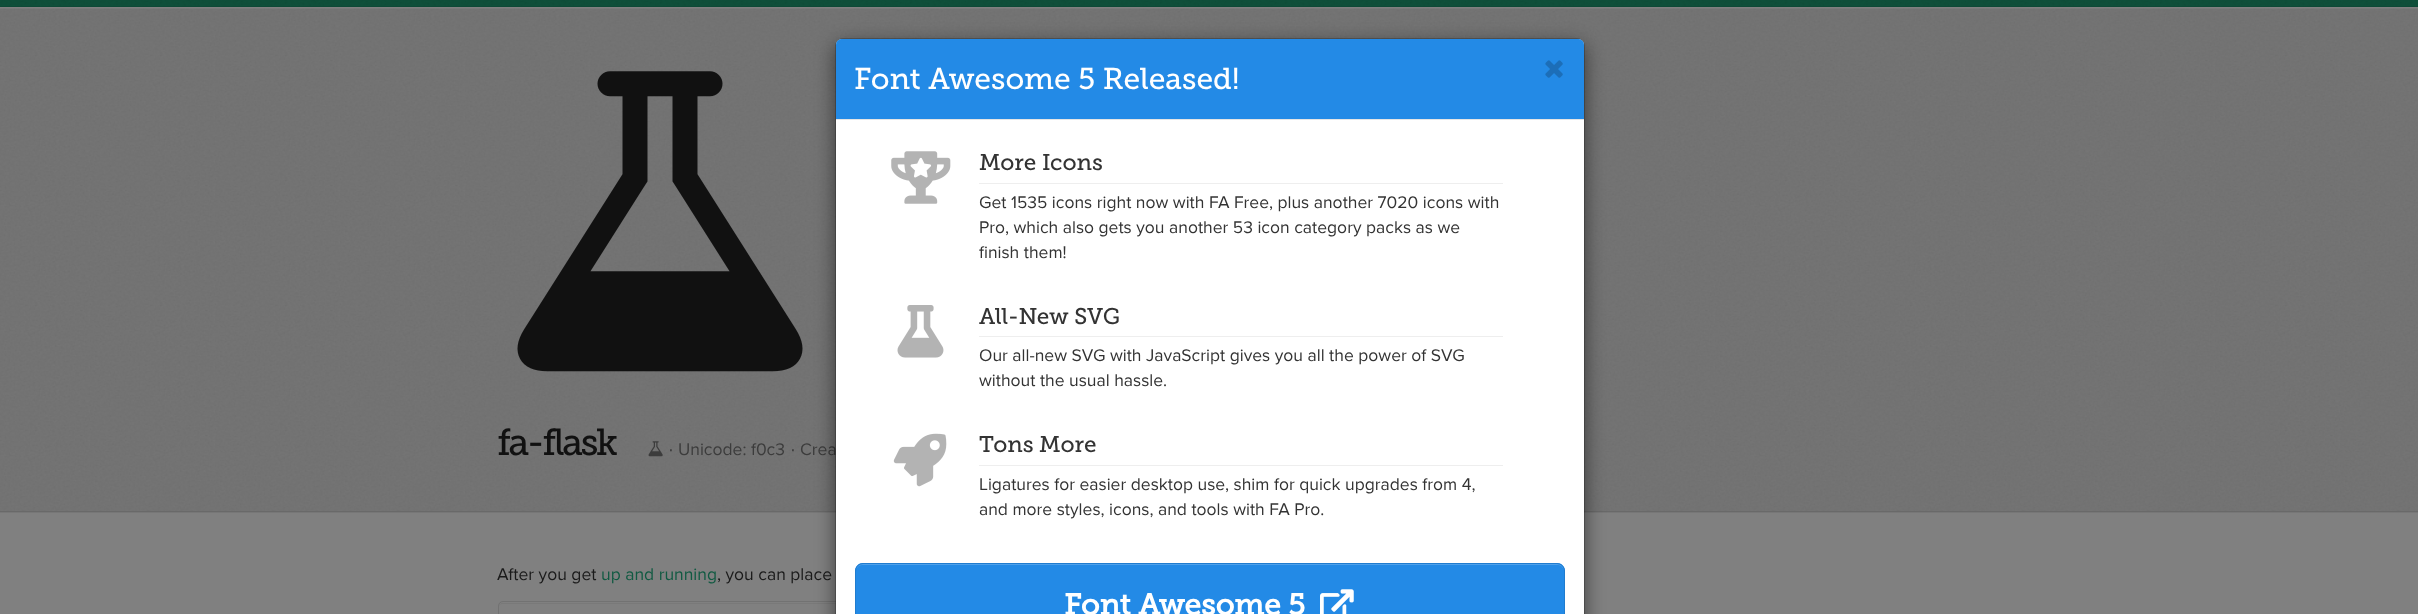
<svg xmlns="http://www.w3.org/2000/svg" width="2418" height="614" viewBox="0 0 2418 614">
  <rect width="100%" height="100%" fill="rgb(128,128,128)"/>
  <rect x="0" y="0" width="2418" height="6" fill="rgb(16,83,61)"/>
  <rect x="0" y="6" width="2418" height="1" fill="rgb(14,73,54)"/>
  <image x="0" y="0" width="2418" height="6" href="pic1.png"/>
  <rect x="0" y="9" width="2418" height="504" fill="rgb(119,119,119)"/>
  <rect x="0" y="8" width="2418" height="1" fill="rgb(124,124,124)"/>
  <rect x="0" y="511" width="2418" height="1" fill="rgb(105,105,105)"/>
  <image x="0" y="8" width="2418" height="503" href="pic2.png"/>
  <image x="517" y="71" width="286" height="301" href="pic3.png"/>
  <text x="497" y="455" font-family="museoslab" font-size="37.5" letter-spacing="-2.5" fill="rgb(17,17,17)">fa-flask</text>
  <image x="648" y="441" width="15" height="16" href="pic4.png"/>
  <text x="668" y="455" font-family="Liberation Sans" font-size="17.5" fill="rgb(60,60,60)">·</text>
  <text x="678" y="455" font-family="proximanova" font-size="17.5" fill="rgb(60,60,60)">Unicode: f0c3</text>
  <text x="790" y="455" font-family="Liberation Sans" font-size="17.5" fill="rgb(60,60,60)">·</text>
  <text x="800" y="455" font-family="proximanova" font-size="17.5" fill="rgb(60,60,60)">Crea</text>
  <text x="497" y="580" font-family="proximanova" font-size="17.5" fill="rgb(26,26,26)">After you get</text>
  <text x="601" y="580" font-family="proximanova" font-size="17.5" fill="rgb(17,90,66)">up and running</text>
  <text x="717" y="580" font-family="proximanova" font-size="17.5" fill="rgb(26,26,26)">, you can place</text>
  <path d="M502 604H1551C1553 604 1555 605 1555 608C1555 605 1554 603 1551 603H503C500 603 499 605 499 608C499 605 500 604 502 604Z" fill="rgb(121,121,121)"/>
  <rect x="498.5" y="601.5" width="1057" height="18" rx="4.5" fill="none" stroke="rgb(114,114,114)"/>
  <rect x="835" y="44" width="750" height="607" rx="8" fill="rgba(0,0,0,0.5)" filter="blur(9.5px)"/>
  <path d="M842 39H1578C1581.5 39 1584 41.5 1584 45V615H836V45C836 41.5 838.5 39 842 39Z" fill="rgb(255,255,255)"/>
  <rect x="835.5" y="38.5" width="749" height="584" rx="7.5" fill="none" stroke="rgba(0,0,0,0.2)"/>
  <path d="M842 39H1578C1581.5 39 1584 41.5 1584 45V120H836V45C836 41.5 838.5 39 842 39Z" fill="rgb(35,138,230)"/>
  <rect x="836" y="119" width="748" height="1" fill="rgb(229,229,229)"/>
  <text x="854" y="89" font-family="museoslab" font-size="30" fill="rgb(255,255,255)">Font Awesome 5 Released!</text>
  <image x="1545" y="60" width="18" height="18" href="pic5.png"/>
  <image x="891" y="151" width="60" height="53" href="pic6.png"/>
  <rect x="979" y="183" width="524" height="1" fill="rgb(238,238,238)"/>
  <text x="979" y="170" font-family="museoslab" font-size="22.5" fill="rgb(51,51,51)">More Icons</text>
  <g font-family="proximanova" font-size="17.5" fill="rgb(51,51,51)">
    <text>
      <tspan x="979" y="208">Get 1535 icons right now with FA Free, plus another 7020 icons with</tspan>
      <tspan x="979" y="233">Pro, which also gets you another 53 icon category packs as we</tspan>
      <tspan x="979" y="258">finish them!</tspan>
    </text>
  </g>
  <image x="897" y="305" width="47" height="53" href="pic7.png"/>
  <rect x="979" y="336" width="524" height="1" fill="rgb(238,238,238)"/>
  <text x="979" y="324" font-family="museoslab" font-size="22.5" fill="rgb(51,51,51)">All-New SVG</text>
  <g font-family="proximanova" font-size="17.5" fill="rgb(51,51,51)">
    <text>
      <tspan x="979" y="361">Our all-new SVG with JavaScript gives you all the power of SVG</tspan>
      <tspan x="979" y="386">without the usual hassle.</tspan>
    </text>
  </g>
  <image x="893" y="433" width="54" height="54" href="pic8.png"/>
  <rect x="979" y="465" width="524" height="1" fill="rgb(238,238,238)"/>
  <text x="979" y="452" font-family="museoslab" font-size="22.5" fill="rgb(51,51,51)">Tons More</text>
  <g font-family="proximanova" font-size="17.5" fill="rgb(51,51,51)">
    <text>
      <tspan x="979" y="490">Ligatures for easier desktop use, shim for quick upgrades from 4,</tspan>
      <tspan x="979" y="515">and more styles, icons, and tools with FA Pro.</tspan>
    </text>
  </g>
  <path d="M863 563H1557C1561.5 563 1565 566.5 1565 571V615H855V571C855 566.5 858.5 563 863 563Z" fill="rgb(35,138,230)"/>
  <path d="M862 565H1558C1561 565 1564 568 1564 571C1564 567 1562 564 1558 564H862C858 564 856 567 856 571C856 568 859 565 862 565Z" fill="rgb(79,161,235)"/>
  <rect x="855.5" y="563.5" width="709" height="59" rx="7.5" fill="none" stroke="rgb(32,124,207)"/>
  <text x="1064" y="615" font-family="museoslab" font-size="30" font-weight="bold" fill="rgb(255,255,255)">Font Awesome 5</text>
  <image x="1320" y="589" width="34" height="25" href="pic9.png"/>
</svg>
